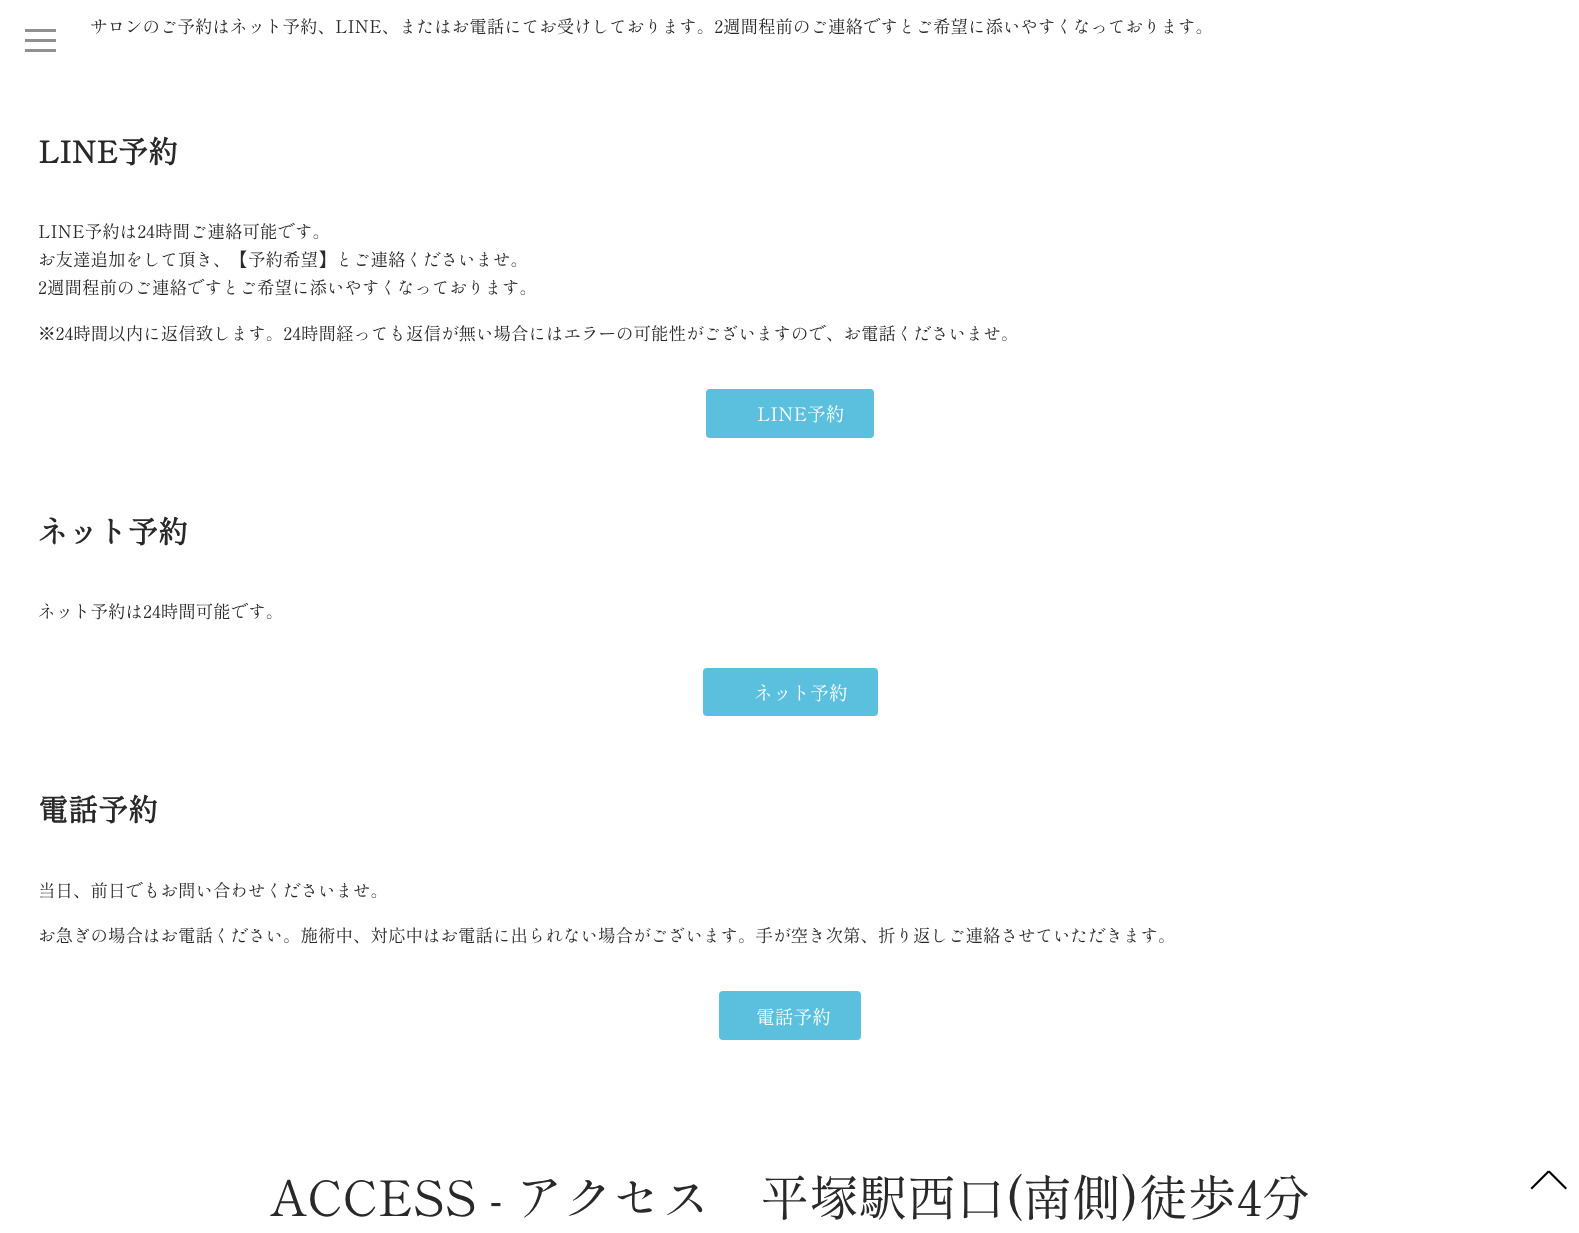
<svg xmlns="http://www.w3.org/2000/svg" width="1579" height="1233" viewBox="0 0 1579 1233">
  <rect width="100%" height="100%" fill="rgb(255,255,255)"/>
  <text x="90" y="33" font-family="Shippori Mincho" font-size="17.5" fill="rgb(41,41,41)">サロンのご予約はネット予約、LINE、またはお電話にてお受けしております。2週間程前のご連絡ですとご希望に添いやすくなっております。</text>
  <text x="38" y="163" font-family="Shippori Mincho" font-size="30" font-weight="bold" fill="rgb(41,41,41)">LINE予約</text>
  <g font-family="Shippori Mincho" font-size="17.5" fill="rgb(41,41,41)">
    <text>
      <tspan x="38" y="238">LINE予約は24時間ご連絡可能です。</tspan>
      <tspan x="38" y="266">お友達追加をして頂き、【予約希望】とご連絡くださいませ。</tspan>
      <tspan x="38" y="294">2週間程前のご連絡ですとご希望に添いやすくなっております。</tspan>
    </text>
    <text x="38" y="340">※24時間以内に返信致します。24時間経っても返信が無い場合にはエラーの可能性がございますので、お電話くださいませ。</text>
  </g>
  <rect x="706" y="389" width="168" height="49" rx="4" fill="rgb(91,192,222)"/>
  <text x="757" y="421" font-family="Shippori Mincho" font-size="18.75" fill="rgb(255,255,255)">LINE予約</text>
  <text x="38" y="543" font-family="Shippori Mincho" font-size="30" font-weight="bold" fill="rgb(41,41,41)">ネット予約</text>
  <text x="38" y="618" font-family="Shippori Mincho" font-size="17.5" fill="rgb(41,41,41)">ネット予約は24時間可能です。</text>
  <rect x="703" y="668" width="175" height="48" rx="4" fill="rgb(91,192,222)"/>
  <text x="754" y="700" font-family="Shippori Mincho" font-size="18.75" fill="rgb(255,255,255)">ネット予約</text>
  <text x="38" y="821" font-family="Shippori Mincho" font-size="30" font-weight="bold" fill="rgb(41,41,41)">電話予約</text>
  <g font-family="Shippori Mincho" font-size="17.5" fill="rgb(41,41,41)">
    <text x="38" y="897">当日、前日でもお問い合わせくださいませ。</text>
    <text x="38" y="942">お急ぎの場合はお電話ください。施術中、対応中はお電話に出られない場合がございます。手が空き次第、折り返しご連絡させていただきます。</text>
  </g>
  <rect x="719" y="991" width="142" height="49" rx="4" fill="rgb(91,192,222)"/>
  <text x="756" y="1024" font-family="Shippori Mincho" font-size="18.75" fill="rgb(255,255,255)">電話予約</text>
  <text x="270" y="1216" font-family="Shippori Mincho" font-size="49" fill="rgb(41,41,41)">ACCESS - アクセス　平塚駅西口(南側)徒歩4分</text>
  <rect x="25" y="29" width="31" height="3" fill="rgb(144,144,144)"/>
  <rect x="25" y="39" width="31" height="3" fill="rgb(144,144,144)"/>
  <rect x="25" y="49" width="31" height="3" fill="rgb(144,144,144)"/>
  <path d="M1549.5 1170.5L1567 1188L1565.5 1189.5L1548 1172Z" fill="rgb(0,0,0)"/>
  <path d="M1530.5 1188L1548 1170.5L1549.5 1172L1532 1189.5Z" fill="rgb(0,0,0)"/>
</svg>
